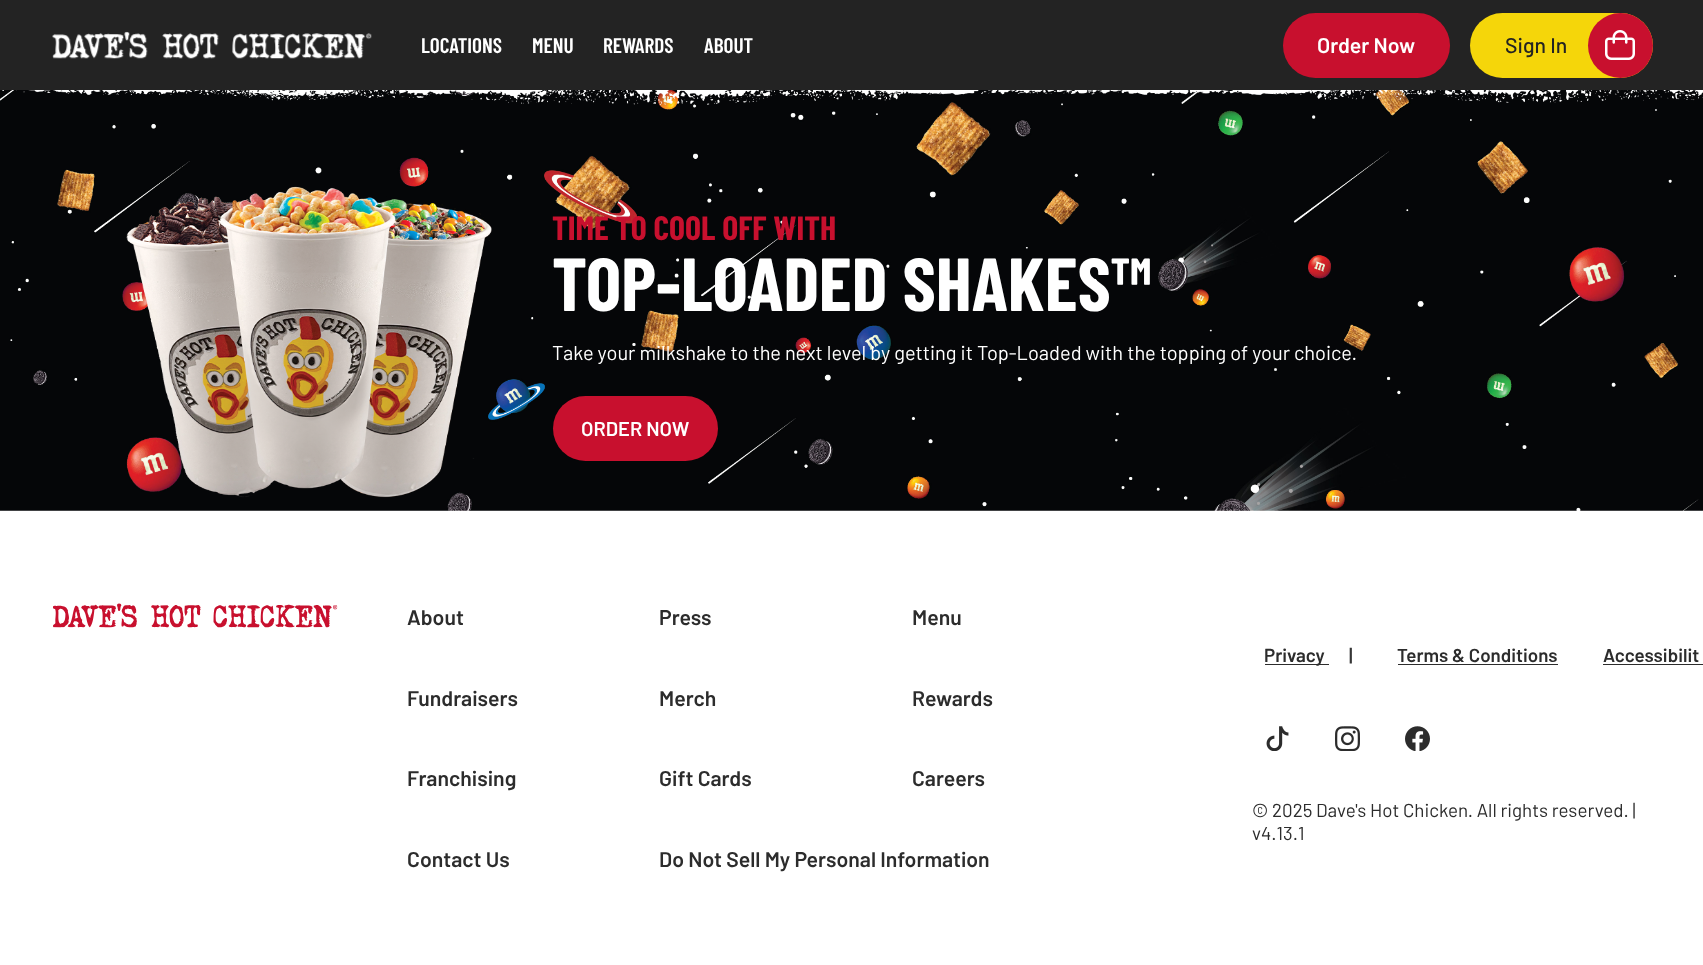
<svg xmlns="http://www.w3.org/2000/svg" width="1703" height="965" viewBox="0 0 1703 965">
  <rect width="100%" height="100%" fill="rgb(255,255,255)"/>
  <rect x="0" y="0" width="1703" height="90" fill="rgb(35,35,35)"/>
  <image x="52" y="31" width="320" height="28" href="pic1.png"/>
  <g font-family="Barlow Condensed" font-size="21.25" font-weight="600" fill="rgb(255,255,255)">
    <text x="421" y="53">LOCATIONS</text>
    <text x="532" y="53">MENU</text>
    <text x="603" y="53">REWARDS</text>
    <text x="704" y="53">ABOUT</text>
  </g>
  <rect x="1283" y="13" width="167" height="65" rx="32.5" fill="rgb(200,16,46)"/>
  <text x="1317" y="53" font-family="Barlow" font-size="21.25" font-weight="600" fill="rgb(255,255,255)">Order Now</text>
  <rect x="1470" y="13" width="183" height="65" rx="32.5" fill="rgb(245,214,10)"/>
  <text x="1505" y="53" font-family="Barlow" font-size="21.25" font-weight="500" fill="rgb(35,35,35)">Sign In</text>
  <circle cx="1620.5" cy="45.5" r="32.5" fill="rgb(200,16,46)"/>
  <image x="1605" y="30" width="30" height="30" href="pic2.png"/>
  <image x="0" y="90" width="1703" height="421" href="pic3.png"/>
  <image x="2" y="90" width="1701" height="15" href="pic4.png"/>
  <image x="126" y="186" width="366" height="312" href="pic5.png"/>
  <text x="552" y="240" font-family="Barlow Condensed" font-size="33.75" font-weight="bold" fill="rgb(200,16,46)">TIME TO COOL OFF WITH</text>
  <text x="552" y="311" font-family="Barlow Condensed" font-size="75" font-weight="bold" fill="rgb(255,255,255)">TOP-LOADED SHAKES™</text>
  <text x="552" y="360" font-family="Barlow" font-size="20" fill="rgb(255,255,255)">Take your milkshake to the next level by getting it Top-Loaded with the topping of your choice.</text>
  <rect x="553" y="396" width="165" height="65" rx="32.5" fill="rgb(200,16,46)"/>
  <text x="581" y="436" font-family="Barlow" font-size="20" font-weight="600" fill="rgb(255,255,255)">ORDER NOW</text>
  <image x="53" y="603" width="285" height="25" href="pic6.png"/>
  <g font-family="Barlow" font-size="21.25" font-weight="600" fill="rgb(44,44,44)">
    <text x="407" y="625">About</text>
    <text x="659" y="625">Press</text>
    <text x="912" y="625">Menu</text>
    <text x="407" y="706">Fundraisers</text>
    <text x="659" y="706">Merch</text>
    <text x="912" y="706">Rewards</text>
    <text x="407" y="786">Franchising</text>
    <text x="659" y="786">Gift Cards</text>
    <text x="912" y="786">Careers</text>
    <text x="407" y="867">Contact Us</text>
    <text x="659" y="867">Do Not Sell My Personal Information</text>
  </g>
  <rect x="1265" y="664" width="64" height="1" fill="rgb(44,44,44)"/>
  <text x="1264" y="662" font-family="Barlow" font-size="18.75" font-weight="600" fill="rgb(44,44,44)">Privacy</text>
  <text x="1349" y="662" font-family="Barlow" font-size="18.75" font-weight="600" fill="rgb(54,54,54)">|</text>
  <text x="1397" y="662" font-family="Barlow" font-size="18.75" font-weight="600" fill="rgb(44,44,44)">Terms &amp; Conditions</text>
  <rect x="1398" y="664" width="160" height="1" fill="rgb(44,44,44)"/>
  <text x="1603" y="662" font-family="Barlow" font-size="18.75" font-weight="600" fill="rgb(44,44,44)">Accessibilit</text>
  <rect x="1603" y="664" width="100" height="1" fill="rgb(44,44,44)"/>
  <image x="1266" y="726" width="23" height="25" href="pic7.png"/>
  <image x="1335" y="726" width="25" height="25" href="pic8.png"/>
  <image x="1405" y="726" width="25" height="25" href="pic9.png"/>
  <g font-family="Barlow" font-size="18.75" fill="rgb(44,44,44)">
    <text>
      <tspan x="1252" y="817">© 2025 Dave's Hot Chicken. All rights reserved. |</tspan>
      <tspan x="1252" y="840">v4.13.1</tspan>
    </text>
  </g>
</svg>
